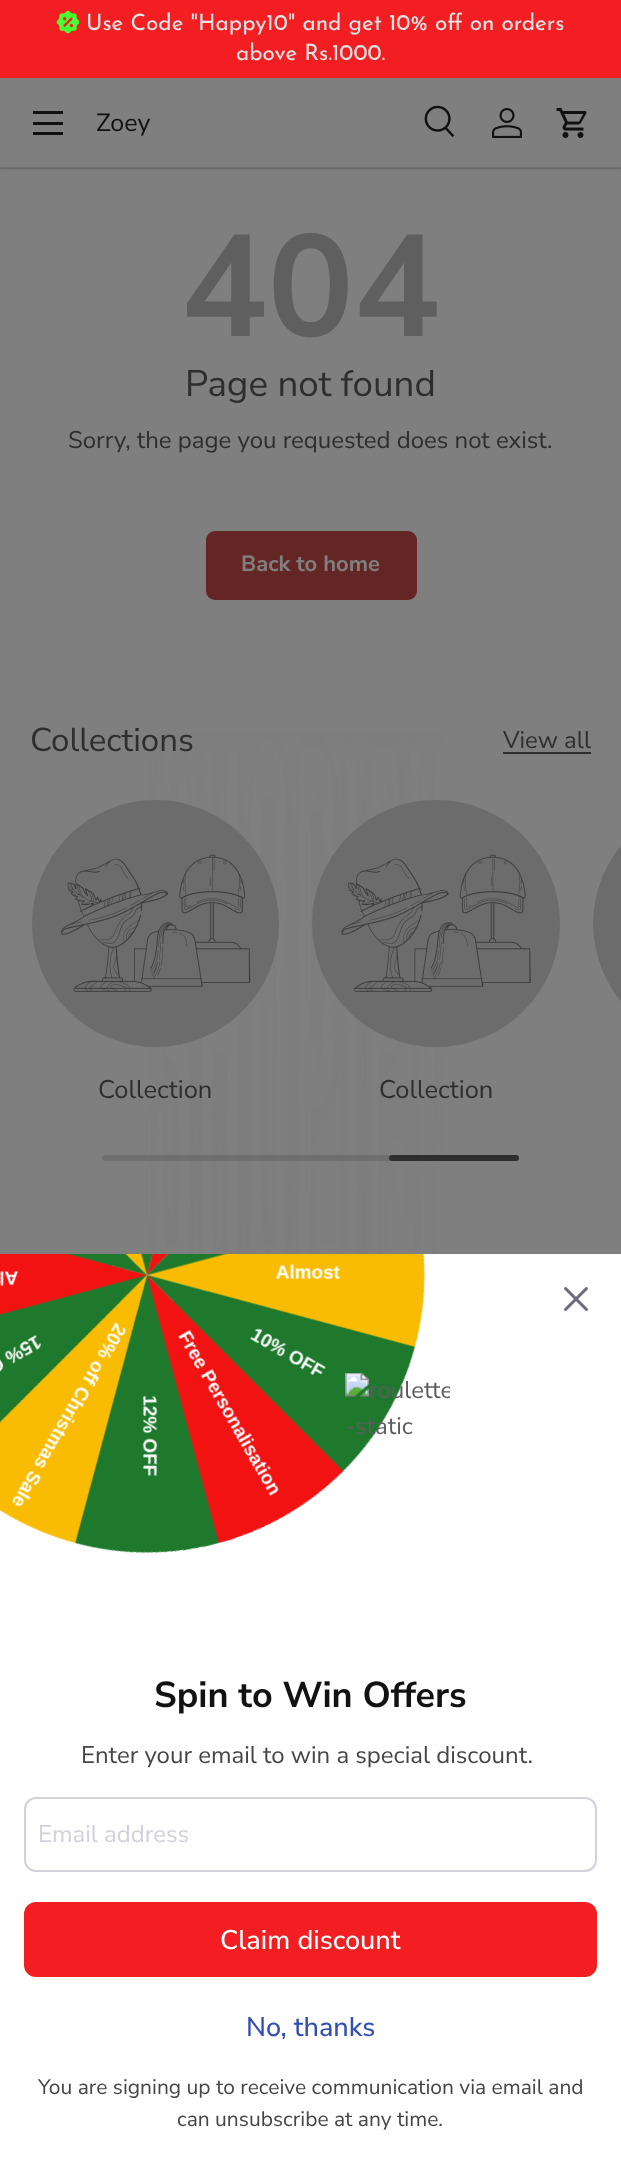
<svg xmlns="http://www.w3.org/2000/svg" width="621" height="2158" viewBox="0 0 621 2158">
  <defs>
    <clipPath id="clip1"><rect x="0" y="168" width="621" height="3"/></clipPath>
    <linearGradient id="g1" gradientUnits="userSpaceOnUse" x1="-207" y1="489" x2="407" y2="642"><stop offset="0.6" stop-color="rgb(213,113,113)"/><stop offset="0.6" stop-color="rgb(201,74,74)"/><stop offset="1" stop-color="rgb(201,74,74)"/></linearGradient>
    <clipPath id="clip2"><rect x="593" y="800" width="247" height="247" rx="123.5"/></clipPath>
  </defs>
  <rect width="100%" height="100%" fill="rgb(255,255,255)"/>
  <g clip-path="url(#clip1)">
    <rect x="-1" y="77" width="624" height="93" fill="rgba(0,0,0,0.08)" filter="blur(2px)"/>
  </g>
  <rect x="0" y="0" width="621" height="78" fill="rgb(242,30,34)"/>
  <image x="56" y="10" width="24" height="24" href="pic1.png"/>
  <g font-family="Josefin Sans" font-size="22.5" font-weight="100" fill="rgb(229,229,229)">
    <text x="86" y="30">Use Code "Happy10" and get 10% off on orders</text>
    <text x="236" y="60">above Rs.1000.</text>
  </g>
  <rect x="33" y="111" width="30" height="3" fill="rgb(34,34,34)"/>
  <rect x="33" y="132" width="30" height="3" fill="rgb(34,34,34)"/>
  <rect x="33" y="122" width="30" height="3" fill="rgb(34,34,34)"/>
  <text x="96" y="131" font-family="Nunito Sans" font-size="25" fill="rgb(34,34,34)">Zoey</text>
  <image x="424" y="105" width="31" height="32" href="pic2.png"/>
  <image x="492" y="108" width="30" height="30" href="pic3.png"/>
  <image x="556" y="108" width="31" height="30" href="pic4.png"/>
  <rect x="0" y="167" width="621" height="2" fill="rgba(34,34,34,0.15)"/>
  <text x="181" y="336" font-family="Nunito Sans" font-size="144" font-weight="bold" fill="rgb(190,190,191)">404</text>
  <text x="185" y="396" font-family="Nunito Sans" font-size="36.75" fill="rgb(92,92,95)">Page not found</text>
  <text x="68" y="448" font-family="Nunito Sans" font-size="24" fill="rgb(92,92,95)">Sorry, the page you requested does not exist.</text>
  <rect x="206" y="531" width="211" height="69" rx="9" fill="url(#g1)"/>
  <text x="241" y="571" font-family="Nunito Sans" font-size="22" font-weight="bold" fill="rgb(255,255,255)">Back to home</text>
  <image x="151" y="733" width="294" height="521" href="pic7.png"/>
  <text x="30" y="751" font-family="Nunito Sans" font-size="33" fill="rgb(92,92,95)">Collections</text>
  <text x="503" y="748" font-family="Nunito Sans" font-size="24" fill="rgb(92,92,95)">View all</text>
  <rect x="503" y="752" width="88" height="2" fill="rgb(92,92,95)"/>
  <path d="M716.5 800H621V1047H716.5C648.5 1047 593 991.5 593 923.5C593 855.5 648.5 800 716.5 800Z" fill="rgb(250,250,250)"/>
  <g clip-path="url(#clip2)">
    <g clip-path="url(#clip2)">
      <rect x="593" y="845" width="28" height="157" fill="rgb(216,216,216)"/>
    </g>
  </g>
  <circle cx="155.5" cy="923.5" r="123.5" fill="rgb(216,216,216)"/>
  <image x="60" y="854" width="191" height="138" href="pic5.png"/>
  <text x="98" y="1098" font-family="Nunito Sans" font-size="25.5" fill="rgb(92,92,95)">Collection</text>
  <rect x="312" y="800" width="248" height="247" rx="123.5" fill="rgb(216,216,216)"/>
  <image x="341" y="854" width="190" height="138" href="pic6.png"/>
  <text x="379" y="1098" font-family="Nunito Sans" font-size="25.5" fill="rgb(92,92,95)">Collection</text>
  <rect x="102" y="1155" width="417" height="6" rx="3" fill="rgba(92,92,95,0.2)"/>
  <rect x="389" y="1155" width="130" height="6" rx="3" fill="rgb(92,92,95)"/>
  <rect x="0" y="78" width="621" height="1176" fill="rgba(0,0,0,0.5)"/>
  <image x="0" y="1254" width="426" height="300" href="pic8.png"/>
  <image x="345" y="1373" width="105" height="62" href="pic9.png"/>
  <image x="564" y="1287" width="24" height="24" href="pic10.png"/>
  <text x="154" y="1707" font-family="Nunito Sans" font-size="36" font-weight="bold" fill="rgb(18,18,18)">Spin to Win Offers</text>
  <text x="81" y="1763" font-family="Nunito Sans" font-size="24" fill="rgb(69,69,69)">Enter your email to win a special discount.</text>
  <rect x="25" y="1798" width="571" height="73" rx="11" fill="none" stroke="rgb(209,209,219)" stroke-width="2"/>
  <text x="38" y="1842" font-family="Nunito Sans" font-size="24" fill="rgb(209,209,219)">Email address</text>
  <rect x="24" y="1902" width="573" height="75" rx="12" fill="rgb(242,30,34)"/>
  <text x="220" y="1949" font-family="Nunito Sans" font-size="27" font-weight="500" fill="rgb(255,255,255)">Claim discount</text>
  <text x="246" y="2036" font-family="Nunito Sans" font-size="27" font-weight="500" fill="rgb(51,79,180)">No, thanks</text>
  <g font-family="Nunito Sans" font-size="21" fill="rgb(69,69,69)">
    <text x="38" y="2094">You are signing up to receive communication via email and</text>
    <text x="177" y="2126">can unsubscribe at any time.</text>
  </g>
</svg>
